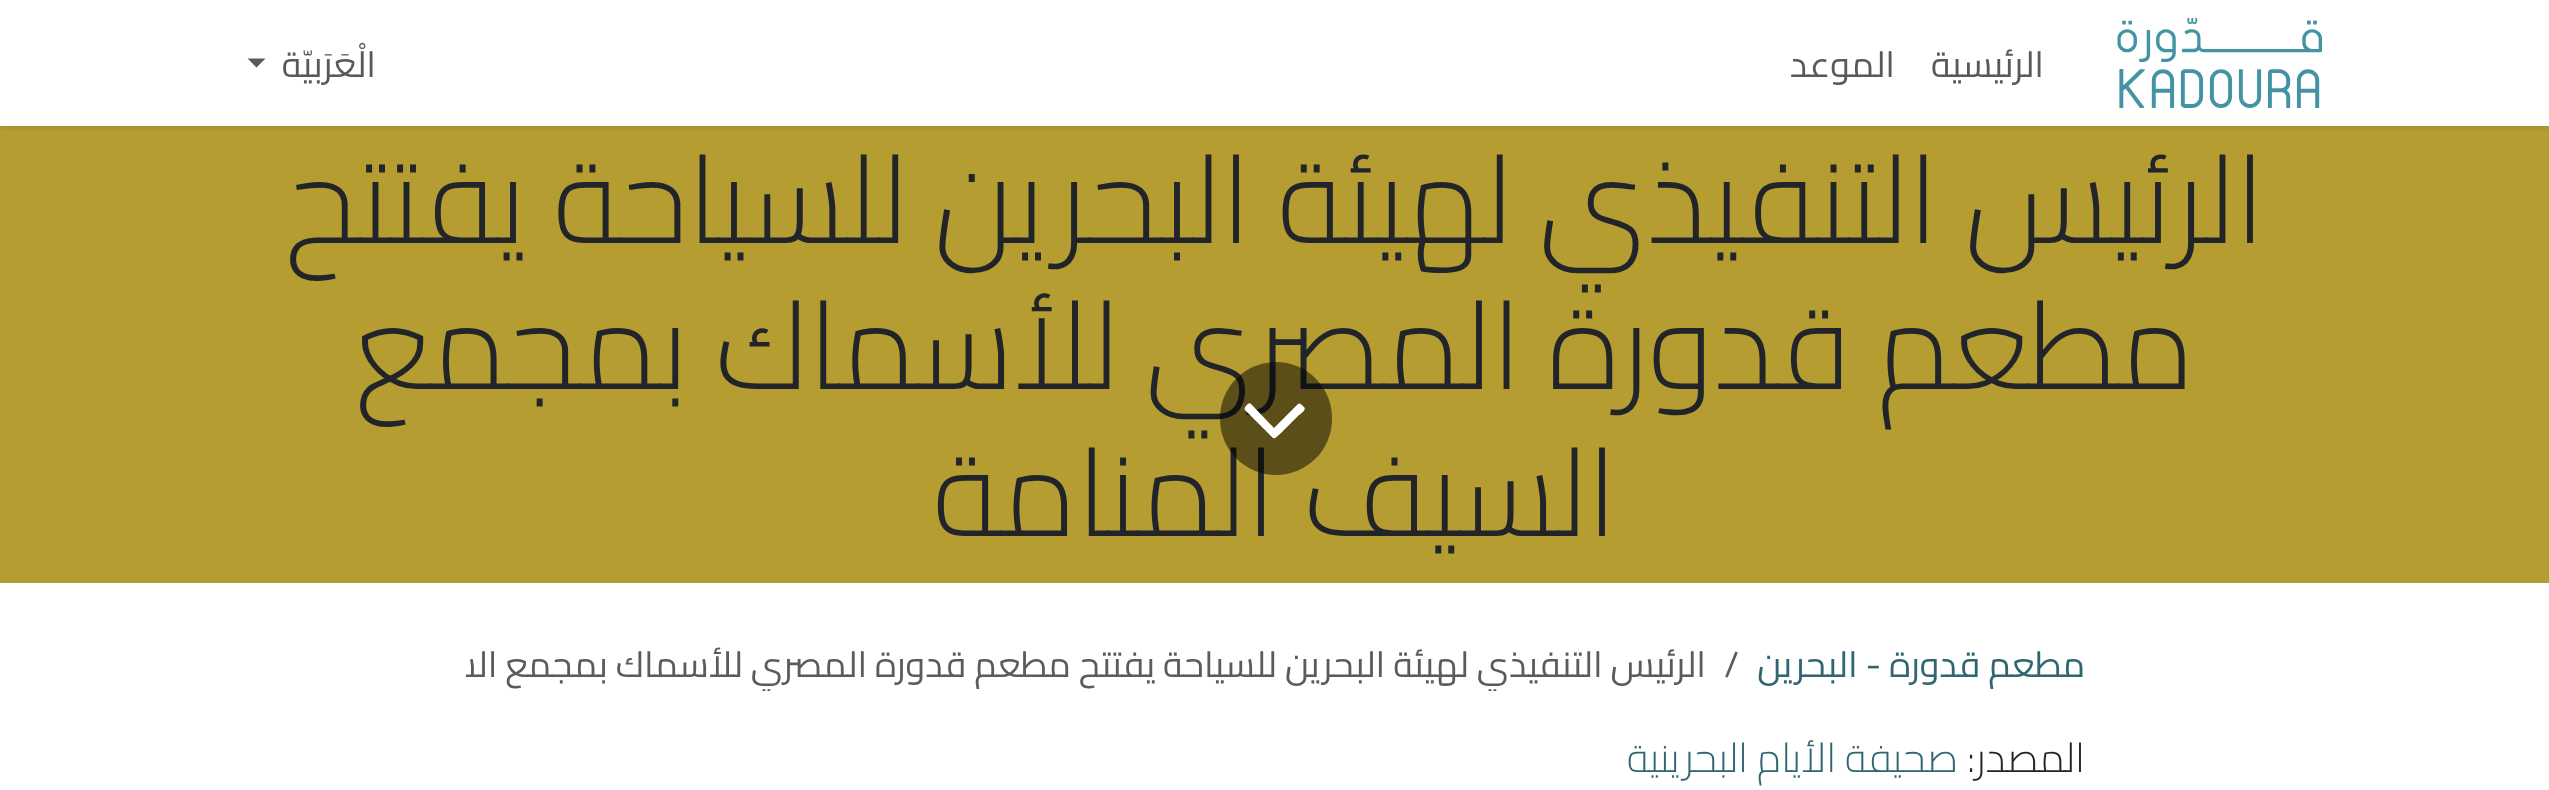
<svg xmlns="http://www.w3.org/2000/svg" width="2549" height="790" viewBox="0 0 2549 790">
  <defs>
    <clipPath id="clip1"><rect x="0" y="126" width="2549" height="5"/></clipPath>
    <clipPath id="clip2"><rect x="466" y="637" width="1291" height="54"/></clipPath>
  </defs>
  <rect width="100%" height="100%" fill="rgb(255,255,255)"/>
  <rect x="0" y="126" width="2549" height="457" fill="rgb(182,157,49)"/>
  <g clip-path="url(#clip1)">
    <rect x="0" y="2" width="2549" height="126" fill="rgba(0,0,0,0.1)" filter="blur(3.5px)"/>
  </g>
  <image x="2117" y="18" width="205" height="90" href="pic1.png"/>
  <g font-family="Cairo" font-size="36" direction="rtl" fill="rgb(89,89,89)">
    <text x="2044" y="77">الرئيسية</text>
    <text x="1895" y="77">الموعد</text>
    <text x="376" y="77">الْعَرَبيّة</text>
  </g>
  <path d="M247.5 58.5H265.5L256.5 67.5Z" fill="rgb(89,89,89)"/>
  <g font-family="Cairo" font-size="121.9" font-weight="300" direction="rtl" fill="rgb(33,37,41)">
    <text x="2265" y="243">الرئيس التنفيذي لهيئة البحرين للسياحة يفتتح</text>
    <text x="2194" y="389">مطعم قدورة المصري للأسماك بمجمع</text>
    <text x="1617" y="536">السيف المنامة</text>
  </g>
  <rect x="1220" y="362" width="112" height="113" rx="56" fill="rgba(0,0,0,0.5)"/>
  <path d="M1304 407C1307 410 1300 414 1299 415L1281 433C1273 440 1275 440 1268 433L1245 410C1244 409 1245 407 1246 406C1247 405 1249 402 1251 404L1274 428L1298 404C1300 402 1303 406 1304 407Z" fill="rgb(255,255,255)"/>
  <text x="2085" y="677" font-family="Cairo" font-size="36" direction="rtl" fill="rgb(47,102,113)">مطعم قدورة - البحرين</text>
  <text x="1724" y="677" font-family="Cairo" font-size="36" fill="rgb(89,92,95)">/</text>
  <g clip-path="url(#clip2)">
    <text x="1706" y="677" font-family="Cairo" font-size="36" direction="rtl" fill="rgb(89,92,95)">الرئيس التنفيذي لهيئة البحرين للسياحة يفتتح مطعم قدورة المصري للأسماك بمجمع السيف المنامة</text>
  </g>
  <text x="2085" y="772" font-family="Cairo" font-size="40.5" font-weight="300" direction="rtl" fill="rgb(33,37,41)">المصدر:</text>
  <text x="1958" y="772" font-family="Cairo" font-size="40.5" font-weight="300" direction="rtl" fill="rgb(47,102,113)">صحيفة الأيام البحرينية</text>
</svg>
